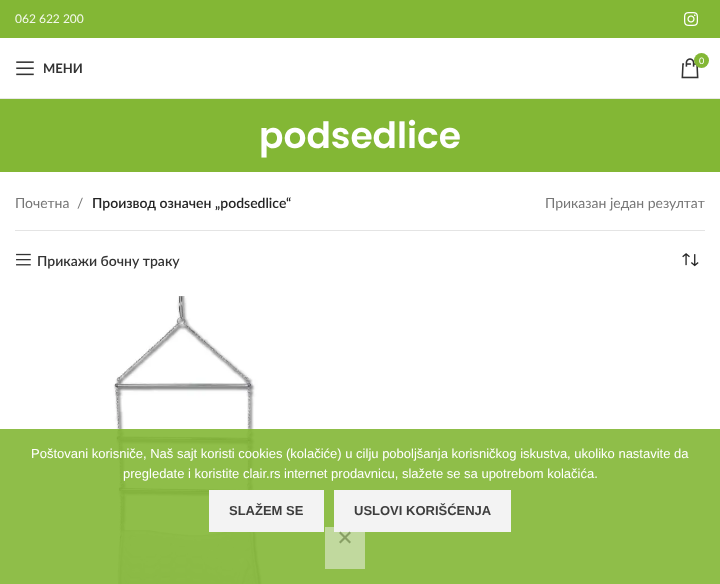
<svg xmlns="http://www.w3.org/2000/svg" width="720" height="584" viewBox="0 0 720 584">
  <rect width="100%" height="100%" fill="rgb(255,255,255)"/>
  <rect x="0" y="0" width="720" height="38" fill="rgb(131,183,53)"/>
  <text x="15" y="23" font-family="Lato" font-size="12" fill="rgb(243,248,235)">062 622 200</text>
  <image x="684" y="12" width="14" height="14" href="pic1.png"/>
  <rect x="0" y="98" width="720" height="1" fill="rgb(232,232,232)"/>
  <image x="681" y="58" width="18" height="21" href="pic2.png"/>
  <circle cx="701.5" cy="60.5" r="7.5" fill="rgb(131,183,53)"/>
  <text x="699" y="64" font-family="Lato" font-size="9" fill="rgb(255,255,255)">0</text>
  <image x="16" y="61" width="18" height="15" href="pic3.png"/>
  <text x="43" y="73" font-family="Lato" font-size="13" font-weight="bold" fill="rgb(51,51,51)">МЕНИ</text>
  <rect x="0" y="99" width="720" height="73" fill="rgb(131,183,53)"/>
  <text x="259" y="148" font-family="Poppins" font-size="36" font-weight="600" fill="rgb(255,255,255)">podsedlice</text>
  <rect x="15" y="230" width="690" height="1" fill="rgb(228,228,228)"/>
  <g font-family="Lato" font-size="14" fill="rgb(118,118,118)">
    <text x="15" y="208">Почетна</text>
    <text x="77" y="208">/</text>
  </g>
  <text x="92" y="208" font-family="Lato" font-size="14" font-weight="600" fill="rgb(36,36,36)">Производ oзначен „podsedlice“</text>
  <text x="545" y="208" font-family="Lato" font-size="14" fill="rgb(118,118,118)">Приказан један резултат</text>
  <image x="16" y="253" width="15" height="13" href="pic4.png"/>
  <text x="37" y="266" font-family="Lato" font-size="14" font-weight="600" fill="rgb(51,51,51)">Прикажи бочну траку</text>
  <image x="682" y="253" width="17" height="14" href="pic5.png"/>
  <image x="113" y="296" width="149" height="288" href="pic6.png"/>
  <rect x="0" y="429" width="720" height="155" fill="rgba(131,183,53,0.9)"/>
  <g font-family="Liberation Sans" font-size="13" fill="rgb(255,255,255)">
    <text x="31" y="458">Poštovani korisniče, Naš sajt koristi cookies (kolačiće) u cilju poboljšanja korisničkog iskustva, ukoliko nastavite da</text>
    <text x="123" y="478">pregledate i koristite clair.rs internet prodavnicu, slažete se sa upotrebom kolačića.</text>
  </g>
  <rect x="209" y="490" width="115" height="42" fill="rgb(243,243,243)"/>
  <text x="229" y="515" font-family="Liberation Sans" font-size="13" font-weight="bold" fill="rgb(62,62,62)">SLAŽEM SE</text>
  <rect x="334" y="490" width="177" height="42" fill="rgb(243,243,243)"/>
  <text x="354" y="515" font-family="Liberation Sans" font-size="13" font-weight="bold" fill="rgb(62,62,62)">USLOVI KORIŠĆENJA</text>
  <rect x="325" y="527" width="40" height="42" fill="rgba(243,243,243,0.5)"/>
  <path d="M349.5 531.5L351 533L340.5 543.5L339 542Z" fill="rgb(136,159,101)"/>
  <path d="M339 533L340.5 531.5L351 542L349.5 543.5Z" fill="rgb(136,159,101)"/>
</svg>
